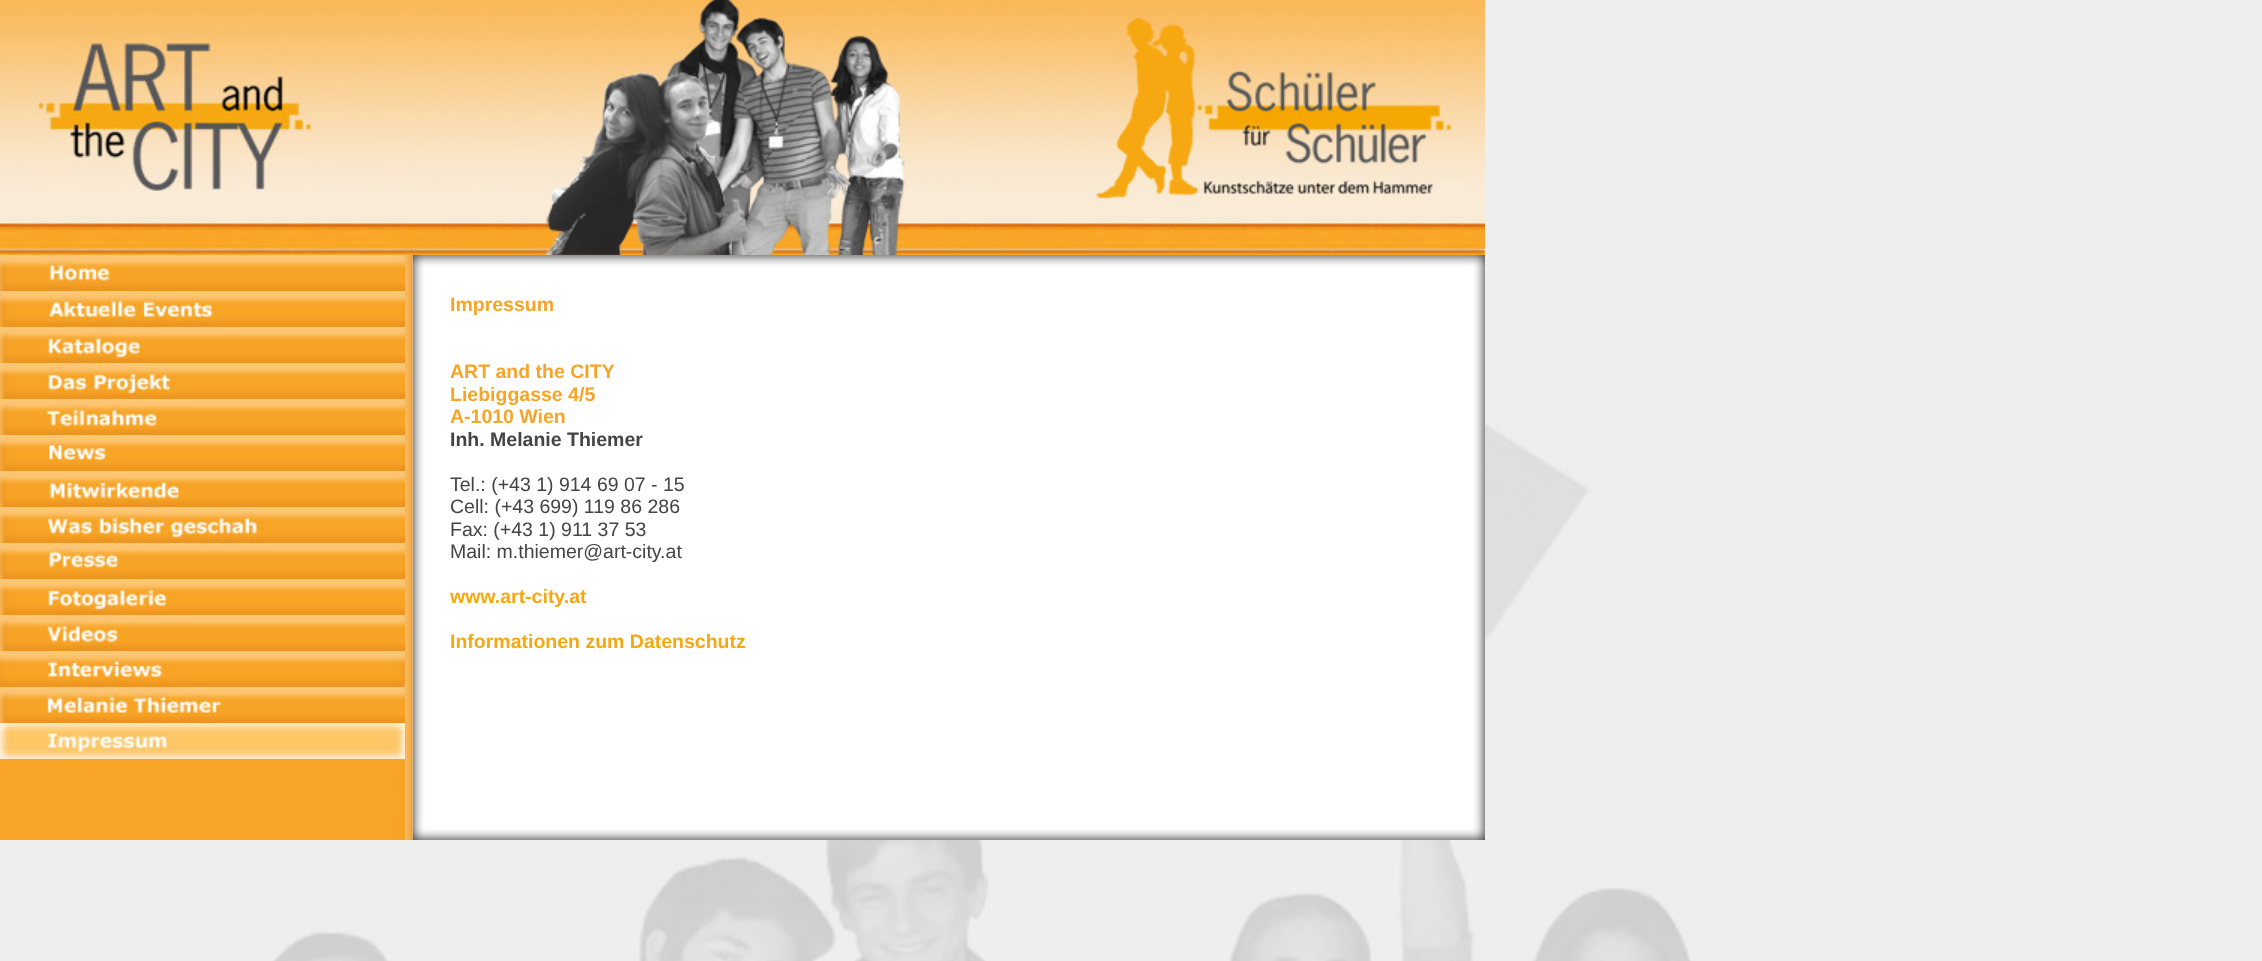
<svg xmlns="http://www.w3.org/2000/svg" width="2262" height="961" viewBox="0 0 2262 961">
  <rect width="100%" height="100%" fill="rgb(238,238,238)"/>
  <image x="273" y="315" width="1418" height="646" href="pic1.png"/>
  <image x="0" y="0" width="1485" height="255" href="pic2.png"/>
  <image x="36" y="36" width="275" height="155" href="pic3.png"/>
  <image x="1096" y="17" width="367" height="182" href="pic5.png"/>
  <image x="405" y="0" width="692" height="255" href="pic4.png"/>
  <image x="412" y="255" width="1073" height="585" href="pic21.png"/>
  <image x="0" y="255" width="413" height="585" href="pic6.png"/>
  <image x="0" y="255" width="405" height="36" href="pic7.png"/>
  <image x="0" y="291" width="405" height="36" href="pic8.png"/>
  <image x="0" y="327" width="405" height="36" href="pic9.png"/>
  <image x="0" y="363" width="405" height="36" href="pic10.png"/>
  <image x="0" y="399" width="405" height="36" href="pic11.png"/>
  <image x="0" y="435" width="405" height="36" href="pic12.png"/>
  <image x="0" y="471" width="405" height="36" href="pic13.png"/>
  <image x="0" y="507" width="405" height="36" href="pic14.png"/>
  <image x="0" y="543" width="405" height="36" href="pic15.png"/>
  <image x="0" y="579" width="405" height="36" href="pic16.png"/>
  <image x="0" y="615" width="405" height="36" href="pic17.png"/>
  <image x="0" y="651" width="405" height="36" href="pic18.png"/>
  <image x="0" y="687" width="405" height="36" href="pic19.png"/>
  <image x="0" y="723" width="405" height="36" href="pic20.png"/>
  <g font-family="Liberation Sans" font-size="19.5" font-weight="bold" fill="rgb(248,164,38)">
    <text x="450" y="311">Impressum</text>
    <text>
      <tspan x="450" y="378">ART and the CITY</tspan>
      <tspan x="450" y="401">Liebiggasse 4/5</tspan>
      <tspan x="450" y="423">A-1010 Wien</tspan>
    </text>
  </g>
  <text x="450" y="446" font-family="Liberation Sans" font-size="19.5" font-weight="bold" fill="rgb(68,68,68)">Inh. Melanie Thiemer</text>
  <g font-family="Liberation Sans" font-size="19.5" fill="rgb(68,68,68)">
    <text>
      <tspan x="450" y="491">Tel.: (+43 1) 914 69 07 - 15</tspan>
      <tspan x="450" y="513">Cell: (+43 699) 119 86 286</tspan>
      <tspan x="450" y="536">Fax: (+43 1) 911 37 53</tspan>
      <tspan x="450" y="558">Mail: m.thiemer@art-city.at</tspan>
    </text>
  </g>
  <g font-family="Liberation Sans" font-size="19.5" font-weight="bold" fill="rgb(246,168,18)">
    <text x="450" y="603">www.art-city.at</text>
    <text x="450" y="648">Informationen zum Datenschutz</text>
  </g>
</svg>
